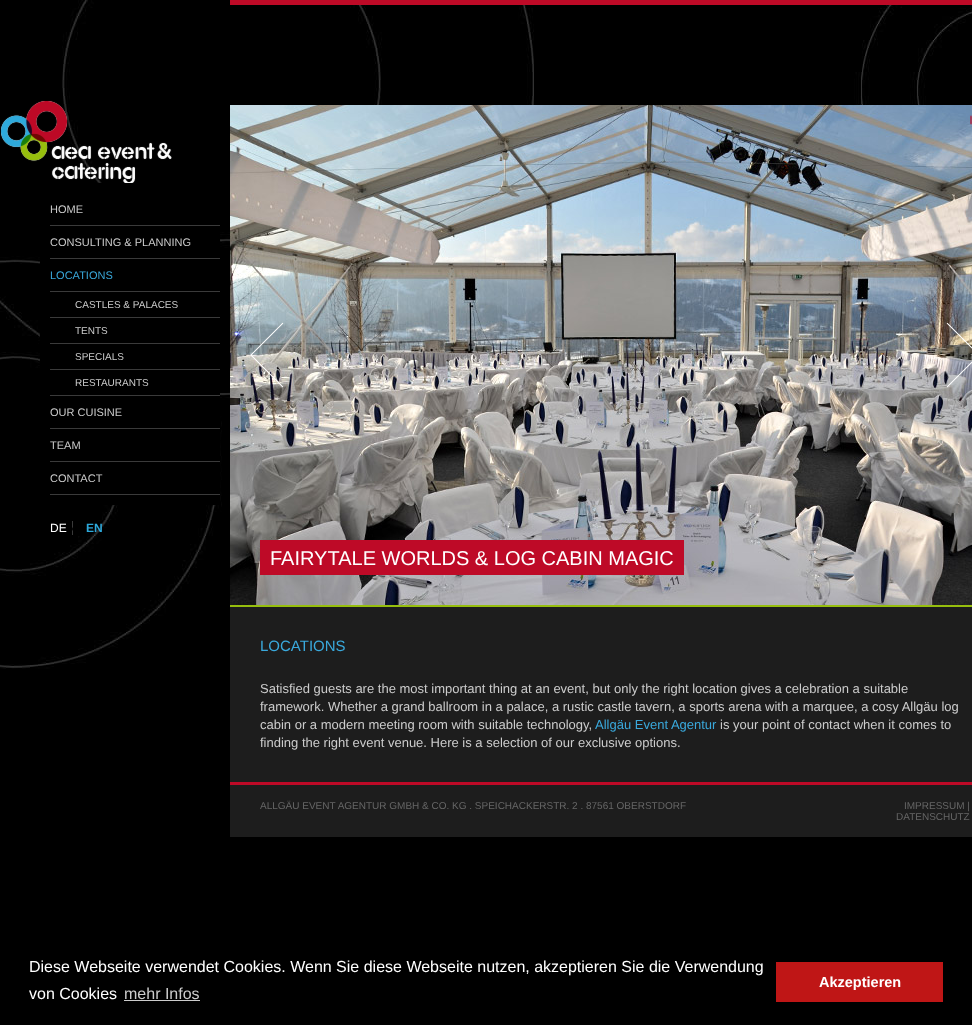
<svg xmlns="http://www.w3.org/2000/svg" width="972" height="1025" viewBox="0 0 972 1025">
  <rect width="100%" height="100%" fill="rgb(0,0,0)"/>
  <image x="0" y="0" width="972" height="669" href="pic1.png"/>
  <image x="0" y="100" width="172" height="83" href="pic2.png"/>
  <rect x="40" y="183" width="180" height="322" fill="rgb(0,0,0)"/>
  <rect x="50" y="225" width="170" height="1" fill="rgb(58,58,58)"/>
  <text x="50" y="213" font-family="Liberation Sans" font-size="11" fill="rgb(204,204,204)">HOME</text>
  <rect x="50" y="258" width="170" height="1" fill="rgb(58,58,58)"/>
  <text x="50" y="246" font-family="Liberation Sans" font-size="11" fill="rgb(204,204,204)">CONSULTING &amp; PLANNING</text>
  <rect x="50" y="291" width="170" height="1" fill="rgb(58,58,58)"/>
  <text x="50" y="279" font-family="Liberation Sans" font-size="11" fill="rgb(58,169,220)">LOCATIONS</text>
  <rect x="50" y="317" width="170" height="1" fill="rgb(58,58,58)"/>
  <text x="75" y="308" font-family="Liberation Sans" font-size="10" fill="rgb(204,204,204)">CASTLES &amp; PALACES</text>
  <rect x="50" y="343" width="170" height="1" fill="rgb(58,58,58)"/>
  <text x="75" y="334" font-family="Liberation Sans" font-size="10" fill="rgb(204,204,204)">TENTS</text>
  <rect x="50" y="369" width="170" height="1" fill="rgb(58,58,58)"/>
  <text x="75" y="360" font-family="Liberation Sans" font-size="10" fill="rgb(204,204,204)">SPECIALS</text>
  <rect x="50" y="395" width="170" height="1" fill="rgb(58,58,58)"/>
  <text x="75" y="386" font-family="Liberation Sans" font-size="10" fill="rgb(204,204,204)">RESTAURANTS</text>
  <rect x="50" y="428" width="170" height="1" fill="rgb(58,58,58)"/>
  <text x="50" y="416" font-family="Liberation Sans" font-size="11" fill="rgb(204,204,204)">OUR CUISINE</text>
  <rect x="50" y="461" width="170" height="1" fill="rgb(58,58,58)"/>
  <text x="50" y="449" font-family="Liberation Sans" font-size="11" fill="rgb(204,204,204)">TEAM</text>
  <rect x="50" y="494" width="170" height="1" fill="rgb(58,58,58)"/>
  <text x="50" y="482" font-family="Liberation Sans" font-size="11" fill="rgb(204,204,204)">CONTACT</text>
  <rect x="72" y="521" width="1" height="14" fill="rgb(58,58,58)"/>
  <text x="50" y="532" font-family="Liberation Sans" font-size="12" fill="rgb(255,255,255)">DE</text>
  <circle cx="74" cy="529" r="2" fill="rgb(0,0,0)"/>
  <text x="86" y="532" font-family="Liberation Sans" font-size="12" font-weight="bold" fill="rgb(45,169,219)">EN</text>
  <rect x="230" y="0" width="742" height="5" fill="rgb(190,10,39)"/>
  <rect x="230" y="605" width="742" height="2" fill="rgb(150,190,13)"/>
  <image x="230" y="105" width="742" height="500" href="pic3.png"/>
  <image x="970" y="115" width="2" height="10" href="pic4.png"/>
  <image x="250" y="322" width="34" height="66" href="pic5.png"/>
  <image x="946" y="322" width="26" height="66" href="pic6.png"/>
  <rect x="260" y="540" width="424" height="35" fill="rgb(190,10,39)"/>
  <text x="270" y="565" font-family="Liberation Sans" font-size="20" fill="rgb(255,255,255)">FAIRYTALE WORLDS &amp; LOG CABIN MAGIC</text>
  <rect x="230" y="607" width="742" height="175" fill="rgb(29,29,29)"/>
  <rect x="230" y="782" width="742" height="3" fill="rgb(190,10,39)"/>
  <text x="260" y="651" font-family="Liberation Sans" font-size="15" fill="rgb(58,169,220)">LOCATIONS</text>
  <g font-family="Liberation Sans" font-size="13" fill="rgb(204,204,204)">
    <text>
      <tspan x="260" y="693">Satisfied guests are the most important thing at an event, but only the right location gives a celebration a suitable</tspan>
      <tspan x="260" y="711">framework. Whether a grand ballroom in a palace, a rustic castle tavern, a sports arena with a marquee, a cosy Allgäu log</tspan>
      <tspan x="260" y="729">cabin or a modern meeting room with suitable technology,</tspan>
    </text>
  </g>
  <text x="595" y="729" font-family="Liberation Sans" font-size="13" fill="rgb(58,169,220)">Allgäu Event Agentur</text>
  <g font-family="Liberation Sans" font-size="13" fill="rgb(204,204,204)">
    <text x="720" y="729">is your point of contact when it comes to</text>
    <text x="260" y="747">finding the right event venue. Here is a selection of our exclusive options.</text>
  </g>
  <rect x="230" y="785" width="742" height="52" fill="rgb(29,29,29)"/>
  <g font-family="Liberation Sans" font-size="10" fill="rgb(102,102,102)">
    <text x="260" y="809">ALLGÄU EVENT AGENTUR GMBH &amp; CO. KG . SPEICHACKERSTR. 2 . 87561 OBERSTDORF</text>
    <text x="904" y="809">IMPRESSUM |</text>
    <text x="896" y="820">DATENSCHUTZ</text>
  </g>
  <g font-family="Liberation Sans" font-size="16" fill="rgb(255,255,255)">
    <text>
      <tspan x="29" y="972">Diese Webseite verwendet Cookies. Wenn Sie diese Webseite nutzen, akzeptieren Sie die Verwendung</tspan>
      <tspan x="29" y="999">von Cookies</tspan>
    </text>
  </g>
  <text x="124" y="999" font-family="Liberation Sans" font-size="16" fill="rgb(204,204,204)">mehr Infos</text>
  <rect x="124" y="1000" width="76" height="1" fill="rgb(204,204,204)"/>
  <rect x="776" y="962" width="167" height="40" fill="rgb(191,22,22)"/>
  <text x="819" y="987" font-family="Liberation Sans" font-size="14.5" font-weight="bold" fill="rgb(255,255,255)">Akzeptieren</text>
</svg>
